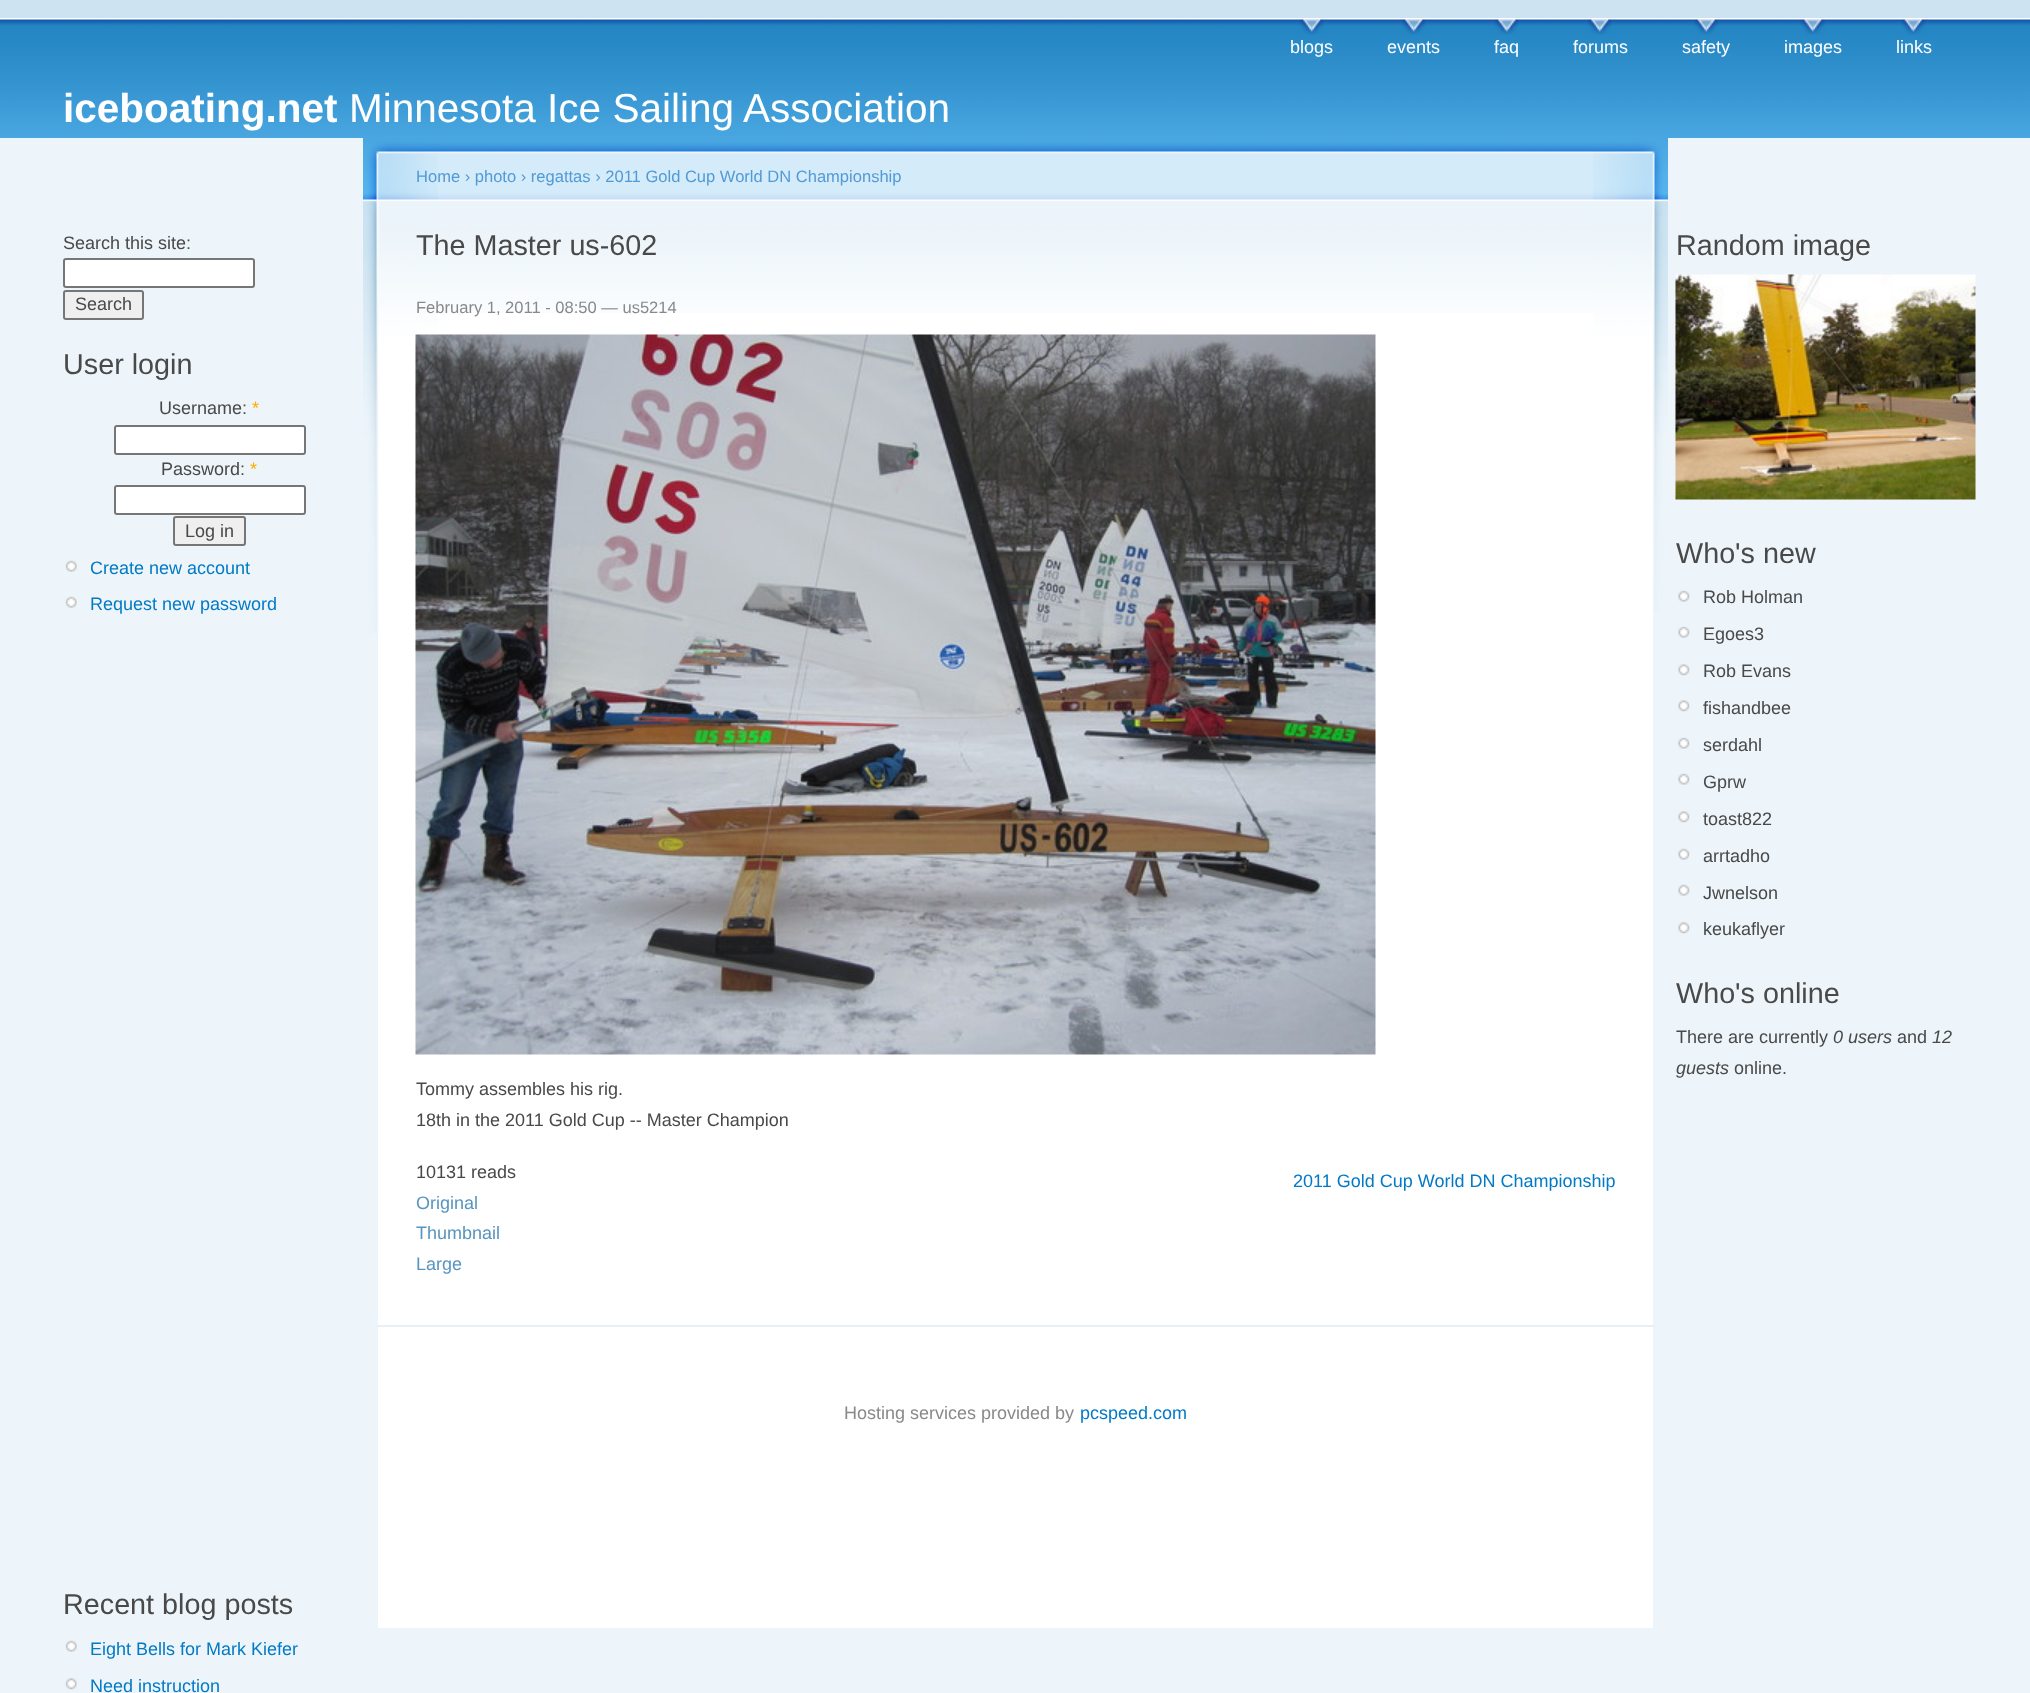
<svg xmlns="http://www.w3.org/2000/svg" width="2030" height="1693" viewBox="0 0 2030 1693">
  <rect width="100%" height="100%" fill="rgb(237,245,250)"/>
  <rect x="0" y="0" width="2030" height="18" fill="rgb(205,227,241)"/>
  <image x="0" y="18" width="2030" height="120" href="pic1.png"/>
  <image x="1299" y="19" width="25" height="16" href="pic2.png"/>
  <text x="1290" y="53" font-family="Liberation Sans" font-size="18" fill="rgb(255,255,255)">blogs</text>
  <image x="1401" y="19" width="25" height="16" href="pic2.png"/>
  <text x="1387" y="53" font-family="Liberation Sans" font-size="18" fill="rgb(255,255,255)">events</text>
  <image x="1494" y="19" width="25" height="16" href="pic3.png"/>
  <text x="1494" y="53" font-family="Liberation Sans" font-size="18" fill="rgb(255,255,255)">faq</text>
  <image x="1587" y="19" width="25" height="16" href="pic2.png"/>
  <text x="1573" y="53" font-family="Liberation Sans" font-size="18" fill="rgb(255,255,255)">forums</text>
  <image x="1694" y="19" width="25" height="16" href="pic4.png"/>
  <text x="1682" y="53" font-family="Liberation Sans" font-size="18" fill="rgb(255,255,255)">safety</text>
  <image x="1800" y="19" width="25" height="16" href="pic5.png"/>
  <text x="1784" y="53" font-family="Liberation Sans" font-size="18" fill="rgb(255,255,255)">images</text>
  <image x="1901" y="19" width="25" height="16" href="pic6.png"/>
  <text x="1896" y="53" font-family="Liberation Sans" font-size="18" fill="rgb(255,255,255)">links</text>
  <text x="63" y="122" font-family="Liberation Sans" font-size="40.5" font-weight="bold" fill="rgb(255,255,255)">iceboating.net</text>
  <text x="349" y="122" font-family="Liberation Sans" font-size="40.5" fill="rgb(255,255,255)">Minnesota Ice Sailing Association</text>
  <text x="63" y="249" font-family="Liberation Sans" font-size="18" fill="rgb(73,73,73)">Search this site:</text>
  <rect x="64" y="259" width="190" height="28" rx="2" fill="rgb(255,255,255)" stroke="rgb(118,118,118)" stroke-width="2"/>
  <rect x="64" y="291" width="79" height="28" rx="2" fill="rgb(239,239,239)" stroke="rgb(118,118,118)" stroke-width="2"/>
  <text x="75" y="310" font-family="Liberation Sans" font-size="18" fill="rgb(73,73,73)">Search</text>
  <text x="63" y="374" font-family="Liberation Sans" font-size="28.75" fill="rgb(73,73,73)">User login</text>
  <text x="159" y="414" font-family="Liberation Sans" font-size="18" fill="rgb(73,73,73)">Username:</text>
  <text x="252" y="414" font-family="Liberation Sans" font-size="18" fill="rgb(255,174,0)">*</text>
  <rect x="115" y="426" width="190" height="28" rx="2" fill="rgb(255,255,255)" stroke="rgb(118,118,118)" stroke-width="2"/>
  <text x="161" y="475" font-family="Liberation Sans" font-size="18" fill="rgb(73,73,73)">Password:</text>
  <text x="250" y="475" font-family="Liberation Sans" font-size="18" fill="rgb(255,174,0)">*</text>
  <rect x="115" y="486" width="190" height="28" rx="2" fill="rgb(255,255,255)" stroke="rgb(118,118,118)" stroke-width="2"/>
  <rect x="174" y="517" width="71" height="28" rx="2" fill="rgb(239,239,239)" stroke="rgb(118,118,118)" stroke-width="2"/>
  <text x="185" y="537" font-family="Liberation Sans" font-size="18" fill="rgb(73,73,73)">Log in</text>
  <image x="65" y="560" width="12" height="12" href="pic7.png"/>
  <text x="90" y="574" font-family="Liberation Sans" font-size="18" fill="rgb(2,122,198)">Create new account</text>
  <image x="65" y="596" width="12" height="12" href="pic7.png"/>
  <text x="90" y="610" font-family="Liberation Sans" font-size="18" fill="rgb(2,122,198)">Request new password</text>
  <text x="63" y="1614" font-family="Liberation Sans" font-size="28.75" fill="rgb(73,73,73)">Recent blog posts</text>
  <image x="65" y="1640" width="12" height="12" href="pic7.png"/>
  <text x="90" y="1655" font-family="Liberation Sans" font-size="18" fill="rgb(2,122,198)">Eight Bells for Mark Kiefer</text>
  <image x="65" y="1678" width="12" height="12" href="pic8.png"/>
  <text x="90" y="1692" font-family="Liberation Sans" font-size="18" fill="rgb(2,122,198)">Need instruction</text>
  <rect x="378" y="313" width="1275" height="1315" fill="rgb(255,255,255)"/>
  <image x="438" y="138" width="1155" height="175" href="pic9.png"/>
  <image x="1593" y="138" width="75" height="473" href="pic10.png"/>
  <image x="363" y="138" width="75" height="495" href="pic11.png"/>
  <text x="416" y="182" font-family="Liberation Sans" font-size="16.55" fill="rgb(82,154,214)">Home › photo › regattas › 2011 Gold Cup World DN Championship</text>
  <text x="416" y="255" font-family="Liberation Sans" font-size="28.75" fill="rgb(73,73,73)">The Master us-602</text>
  <rect x="377" y="1325" width="1278" height="2" fill="rgb(233,239,243)"/>
  <text x="416" y="313" font-family="Liberation Sans" font-size="16.55" fill="rgb(137,137,137)">February 1, 2011 - 08:50 — us5214</text>
  <image x="415" y="334" width="961" height="721" href="pic12.png"/>
  <g font-family="Liberation Sans" font-size="18" fill="rgb(73,73,73)">
    <text>
      <tspan x="416" y="1095">Tommy assembles his rig.</tspan>
      <tspan x="416" y="1126">18th in the 2011 Gold Cup -- Master Champion</tspan>
    </text>
    <text x="416" y="1178">10131 reads</text>
  </g>
  <g font-family="Liberation Sans" font-size="18" fill="rgb(88,149,190)">
    <text>
      <tspan x="416" y="1209">Original</tspan>
      <tspan x="416" y="1239">Thumbnail</tspan>
      <tspan x="416" y="1270">Large</tspan>
    </text>
  </g>
  <text x="1293" y="1187" font-family="Liberation Sans" font-size="18" fill="rgb(2,122,198)">2011 Gold Cup World DN Championship</text>
  <text x="844" y="1419" font-family="Liberation Sans" font-size="18" fill="rgb(137,137,137)">Hosting services provided by</text>
  <text x="1080" y="1419" font-family="Liberation Sans" font-size="18" fill="rgb(2,122,198)">pcspeed.com</text>
  <text x="1676" y="255" font-family="Liberation Sans" font-size="28.75" fill="rgb(73,73,73)">Random image</text>
  <image x="1675" y="274" width="301" height="226" href="pic13.png"/>
  <text x="1676" y="563" font-family="Liberation Sans" font-size="28.75" fill="rgb(73,73,73)">Who's new</text>
  <image x="1678" y="590" width="12" height="12" href="pic14.png"/>
  <text x="1703" y="603" font-family="Liberation Sans" font-size="18" fill="rgb(73,73,73)">Rob Holman</text>
  <image x="1678" y="626" width="12" height="12" href="pic14.png"/>
  <text x="1703" y="640" font-family="Liberation Sans" font-size="18" fill="rgb(73,73,73)">Egoes3</text>
  <image x="1678" y="664" width="12" height="12" href="pic15.png"/>
  <text x="1703" y="677" font-family="Liberation Sans" font-size="18" fill="rgb(73,73,73)">Rob Evans</text>
  <image x="1678" y="700" width="12" height="12" href="pic15.png"/>
  <text x="1703" y="714" font-family="Liberation Sans" font-size="18" fill="rgb(73,73,73)">fishandbee</text>
  <image x="1678" y="737" width="12" height="12" href="pic14.png"/>
  <text x="1703" y="751" font-family="Liberation Sans" font-size="18" fill="rgb(73,73,73)">serdahl</text>
  <image x="1678" y="773" width="12" height="12" href="pic14.png"/>
  <text x="1703" y="788" font-family="Liberation Sans" font-size="18" fill="rgb(73,73,73)">Gprw</text>
  <image x="1678" y="811" width="12" height="12" href="pic15.png"/>
  <text x="1703" y="825" font-family="Liberation Sans" font-size="18" fill="rgb(73,73,73)">toast822</text>
  <image x="1678" y="848" width="12" height="12" href="pic14.png"/>
  <text x="1703" y="862" font-family="Liberation Sans" font-size="18" fill="rgb(73,73,73)">arrtadho</text>
  <image x="1678" y="884" width="12" height="12" href="pic14.png"/>
  <text x="1703" y="899" font-family="Liberation Sans" font-size="18" fill="rgb(73,73,73)">Jwnelson</text>
  <image x="1678" y="922" width="12" height="12" href="pic15.png"/>
  <text x="1703" y="935" font-family="Liberation Sans" font-size="18" fill="rgb(73,73,73)">keukaflyer</text>
  <text x="1676" y="1003" font-family="Liberation Sans" font-size="28.75" fill="rgb(73,73,73)">Who's online</text>
  <text x="1676" y="1043" font-family="Liberation Sans" font-size="18" fill="rgb(73,73,73)">There are currently</text>
  <text x="1833" y="1043" font-family="Liberation Sans" font-size="18" font-style="italic" fill="rgb(73,73,73)">0 users</text>
  <text x="1897" y="1043" font-family="Liberation Sans" font-size="18" fill="rgb(73,73,73)">and</text>
  <g font-family="Liberation Sans" font-size="18" font-style="italic" fill="rgb(73,73,73)">
    <text x="1932" y="1043">12</text>
    <text x="1676" y="1074">guests</text>
  </g>
  <text x="1734" y="1074" font-family="Liberation Sans" font-size="18" fill="rgb(73,73,73)">online.</text>
</svg>
